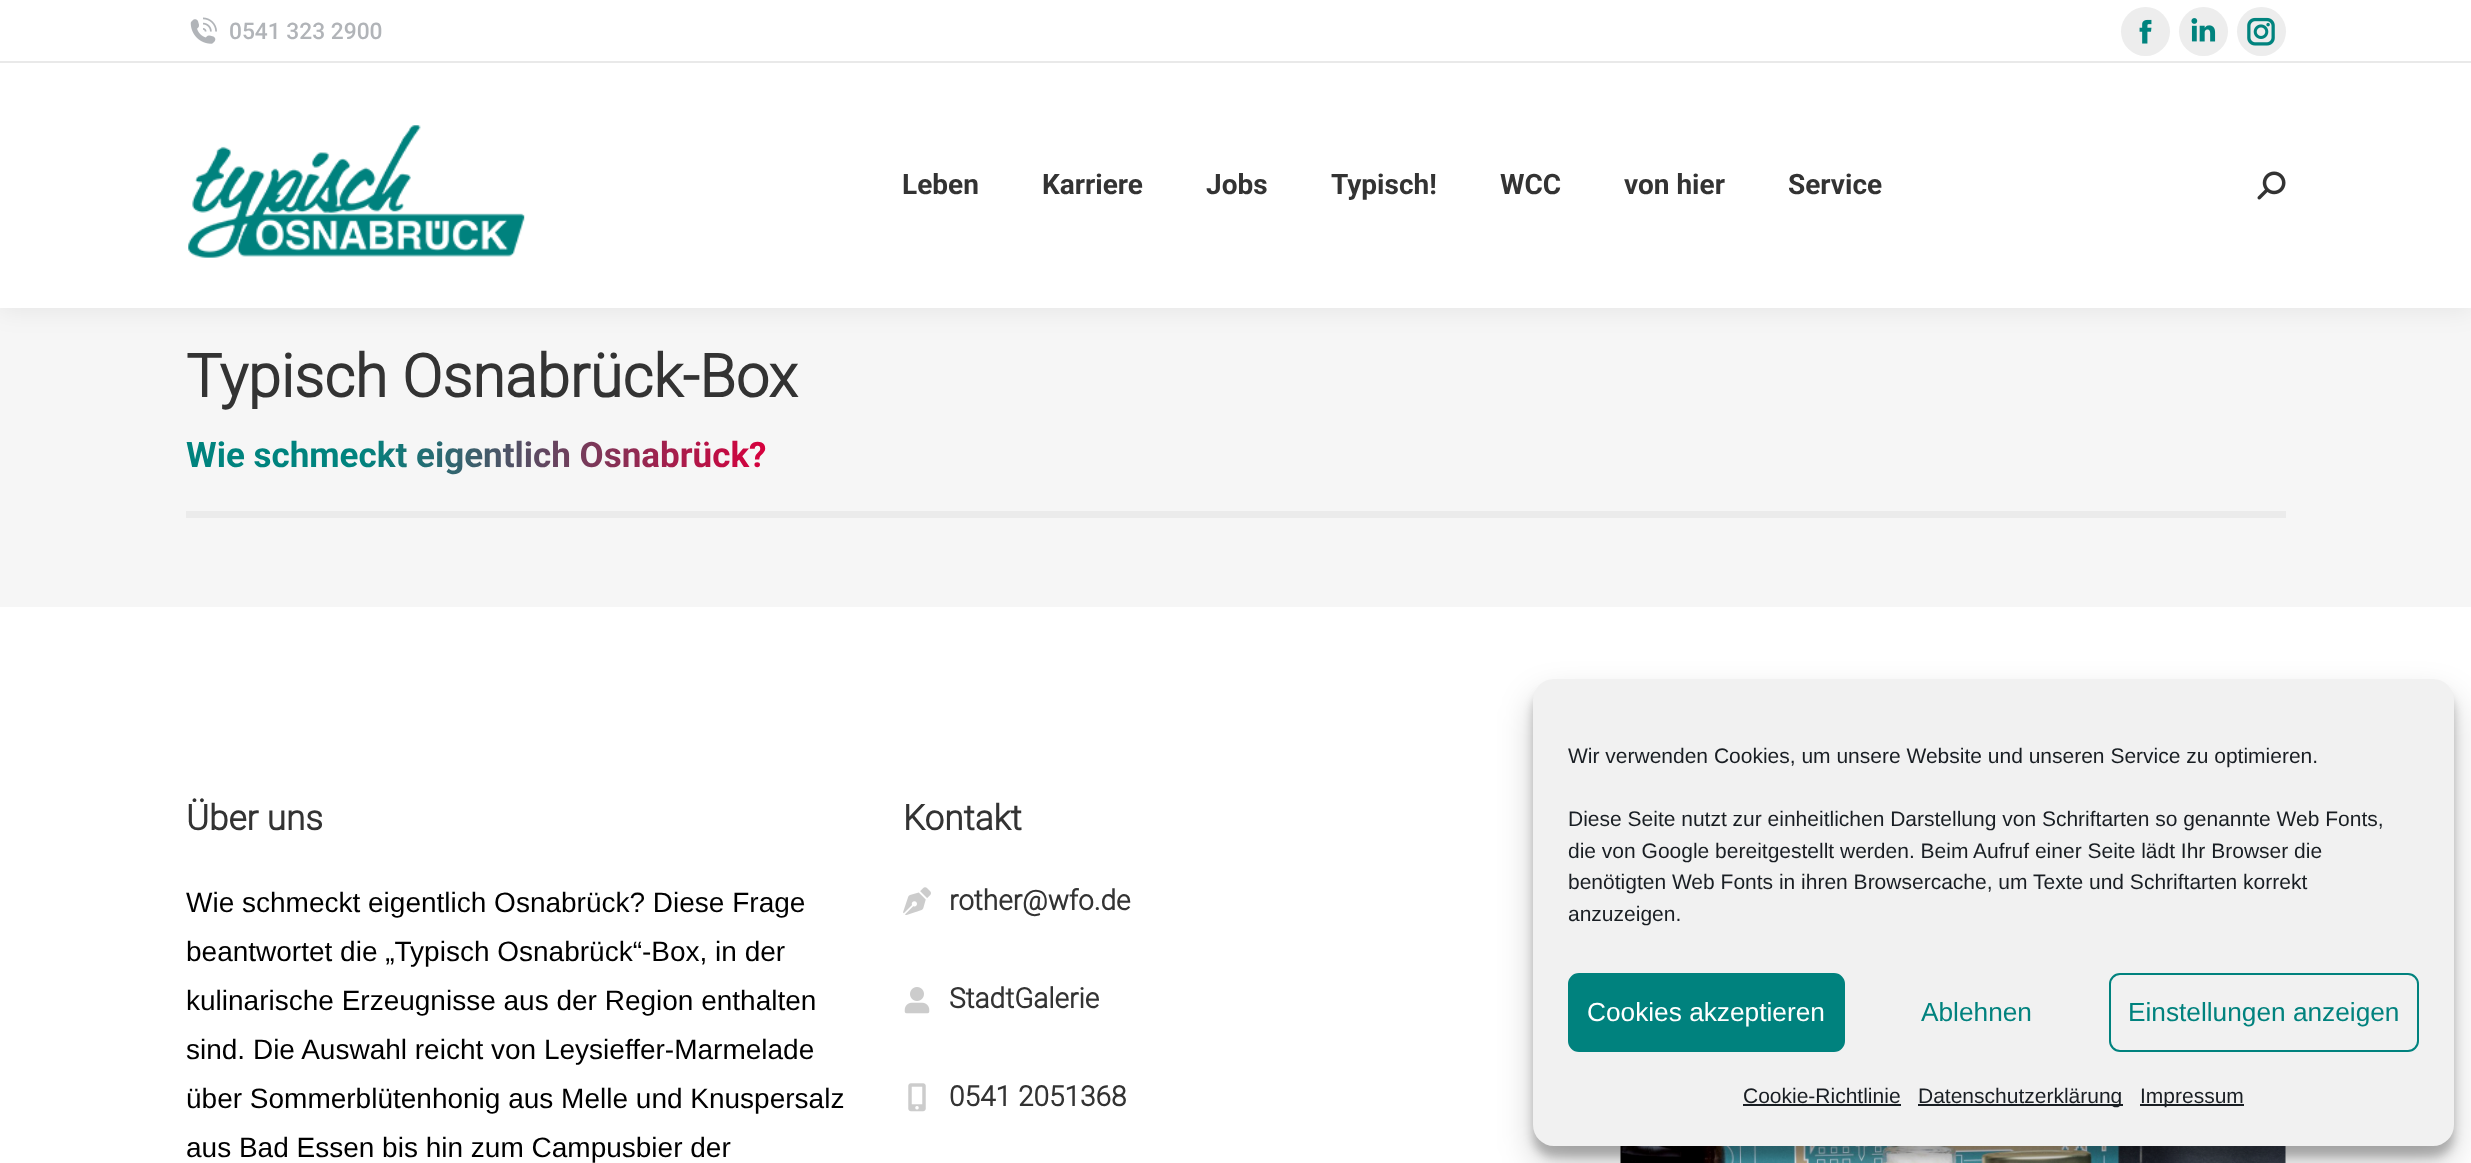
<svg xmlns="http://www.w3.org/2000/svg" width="2471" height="1163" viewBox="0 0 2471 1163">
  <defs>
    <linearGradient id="g1" gradientUnits="userSpaceOnUse" x1="186" y1="455" x2="766" y2="455"><stop offset="0.3" stop-color="rgb(0,131,126)"/><stop offset="1" stop-color="rgb(215,0,61)"/></linearGradient>
  </defs>
  <rect width="100%" height="100%" fill="rgb(255,255,255)"/>
  <rect x="0" y="308" width="2471" height="299" fill="rgb(246,246,246)"/>
  <rect x="-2" y="-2" width="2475" height="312" fill="rgba(0,0,0,0.07)" filter="blur(13px)"/>
  <rect x="0" y="0" width="2471" height="308" fill="rgb(255,255,255)"/>
  <image x="190" y="17" width="27" height="27" href="pic1.png"/>
  <text x="229" y="39" font-family="Roboto" font-size="22.75" font-weight="500" fill="rgb(177,180,184)">0541 323 2900</text>
  <circle cx="2145.5" cy="31.5" r="24.5" fill="rgb(237,237,237)"/>
  <image x="2139" y="19" width="13" height="25" href="pic2.png"/>
  <circle cx="2203.5" cy="31.5" r="24.5" fill="rgb(237,237,237)"/>
  <image x="2191" y="18" width="25" height="24" href="pic3.png"/>
  <circle cx="2261.5" cy="31.5" r="24.5" fill="rgb(237,237,237)"/>
  <image x="2247" y="17" width="28" height="29" href="pic4.png"/>
  <rect x="0" y="61" width="2471" height="2" fill="rgb(233,233,233)"/>
  <image x="188" y="125" width="337" height="133" href="pic5.png"/>
  <g font-family="'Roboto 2'" font-size="28" font-weight="bold" fill="rgb(51,51,51)">
    <text x="902" y="194">Leben</text>
    <text x="1042" y="194">Karriere</text>
    <text x="1206" y="194">Jobs</text>
    <text x="1331" y="194">Typisch!</text>
    <text x="1500" y="194">WCC</text>
    <text x="1624" y="194">von hier</text>
    <text x="1788" y="194">Service</text>
  </g>
  <image x="2257" y="171" width="29" height="29" href="pic6.png"/>
  <text x="186" y="397" font-family="Roboto" font-size="59.5" font-weight="bold" fill="rgb(51,51,51)">Typisch Osnabrück-Box</text>
  <text x="186" y="467" font-family="'Roboto 2'" font-size="35" font-weight="bold" fill="url(#g1)">Wie schmeckt eigentlich Osnabrück?</text>
  <rect x="186" y="511" width="2100" height="7" fill="rgb(235,235,235)"/>
  <text x="186" y="830" font-family="Roboto" font-size="35" font-weight="bold" fill="rgb(51,51,51)">Über uns</text>
  <g font-family="Liberation Sans" font-size="28" fill="rgb(0,0,0)">
    <text>
      <tspan x="186" y="912">Wie schmeckt eigentlich Osnabrück? Diese Frage</tspan>
      <tspan x="186" y="961">beantwortet die „Typisch Osnabrück“-Box, in der</tspan>
      <tspan x="186" y="1010">kulinarische Erzeugnisse aus der Region enthalten</tspan>
      <tspan x="186" y="1059">sind. Die Auswahl reicht von Leysieffer-Marmelade</tspan>
      <tspan x="186" y="1108">über Sommerblütenhonig aus Melle und Knuspersalz</tspan>
      <tspan x="186" y="1157">aus Bad Essen bis hin zum Campusbier der</tspan>
    </text>
  </g>
  <text x="903" y="830" font-family="Roboto" font-size="35" font-weight="bold" fill="rgb(51,51,51)">Kontakt</text>
  <image x="903" y="887" width="28" height="28" href="pic7.png"/>
  <text x="949" y="910" font-family="Roboto" font-size="28" font-weight="bold" fill="rgb(51,51,51)">rother@wfo.de</text>
  <image x="904" y="987" width="26" height="27" href="pic8.png"/>
  <text x="949" y="1008" font-family="Roboto" font-size="28" font-weight="bold" fill="rgb(51,51,51)">StadtGalerie</text>
  <image x="908" y="1083" width="18" height="29" href="pic9.png"/>
  <text x="949" y="1106" font-family="Roboto" font-size="28" font-weight="bold" fill="rgb(51,51,51)">0541 2051368</text>
  <image x="1620" y="1146" width="666" height="17" href="pic10.png"/>
  <rect x="1533" y="690" width="921" height="467" rx="21" fill="rgba(0,0,0,0.23)" filter="blur(5px)"/>
  <rect x="1533" y="697" width="921" height="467" rx="21" fill="rgba(0,0,0,0.19)" filter="blur(17.5px)"/>
  <rect x="1533" y="679" width="921" height="467" rx="21" fill="rgb(241,241,241)"/>
  <g font-family="Liberation Sans" font-size="21" fill="rgb(25,30,35)">
    <text x="1568" y="763">Wir verwenden Cookies, um unsere Website und unseren Service zu optimieren.</text>
    <text>
      <tspan x="1568" y="826">Diese Seite nutzt zur einheitlichen Darstellung von Schriftarten so genannte Web Fonts,</tspan>
      <tspan x="1568" y="858">die von Google bereitgestellt werden. Beim Aufruf einer Seite lädt Ihr Browser die</tspan>
      <tspan x="1568" y="889">benötigten Web Fonts in ihren Browsercache, um Texte und Schriftarten korrekt</tspan>
      <tspan x="1568" y="921">anzuzeigen.</tspan>
    </text>
  </g>
  <rect x="1569" y="974" width="275" height="77" rx="10" fill="rgb(0,130,126)" stroke="rgb(0,130,126)" stroke-width="2"/>
  <text x="1587" y="1021" font-family="Liberation Sans" font-size="26.25" fill="rgb(255,255,255)">Cookies akzeptieren</text>
  <text x="1921" y="1021" font-family="Liberation Sans" font-size="26.25" fill="rgb(0,130,126)">Ablehnen</text>
  <rect x="2110" y="974" width="308" height="77" rx="10" fill="none" stroke="rgb(0,130,126)" stroke-width="2"/>
  <text x="2128" y="1021" font-family="Liberation Sans" font-size="26.25" fill="rgb(0,130,126)">Einstellungen anzeigen</text>
  <text x="1743" y="1103" font-family="Liberation Sans" font-size="21" fill="rgb(25,30,35)">Cookie-Richtlinie</text>
  <rect x="1743" y="1104" width="158" height="2" fill="rgb(25,30,35)"/>
  <rect x="1918" y="1104" width="205" height="2" fill="rgb(25,30,35)"/>
  <text x="1918" y="1103" font-family="Liberation Sans" font-size="21" fill="rgb(25,30,35)">Datenschutzerklärung</text>
  <rect x="2140" y="1104" width="104" height="2" fill="rgb(25,30,35)"/>
  <text x="2140" y="1103" font-family="Liberation Sans" font-size="21" fill="rgb(25,30,35)">Impressum</text>
</svg>
